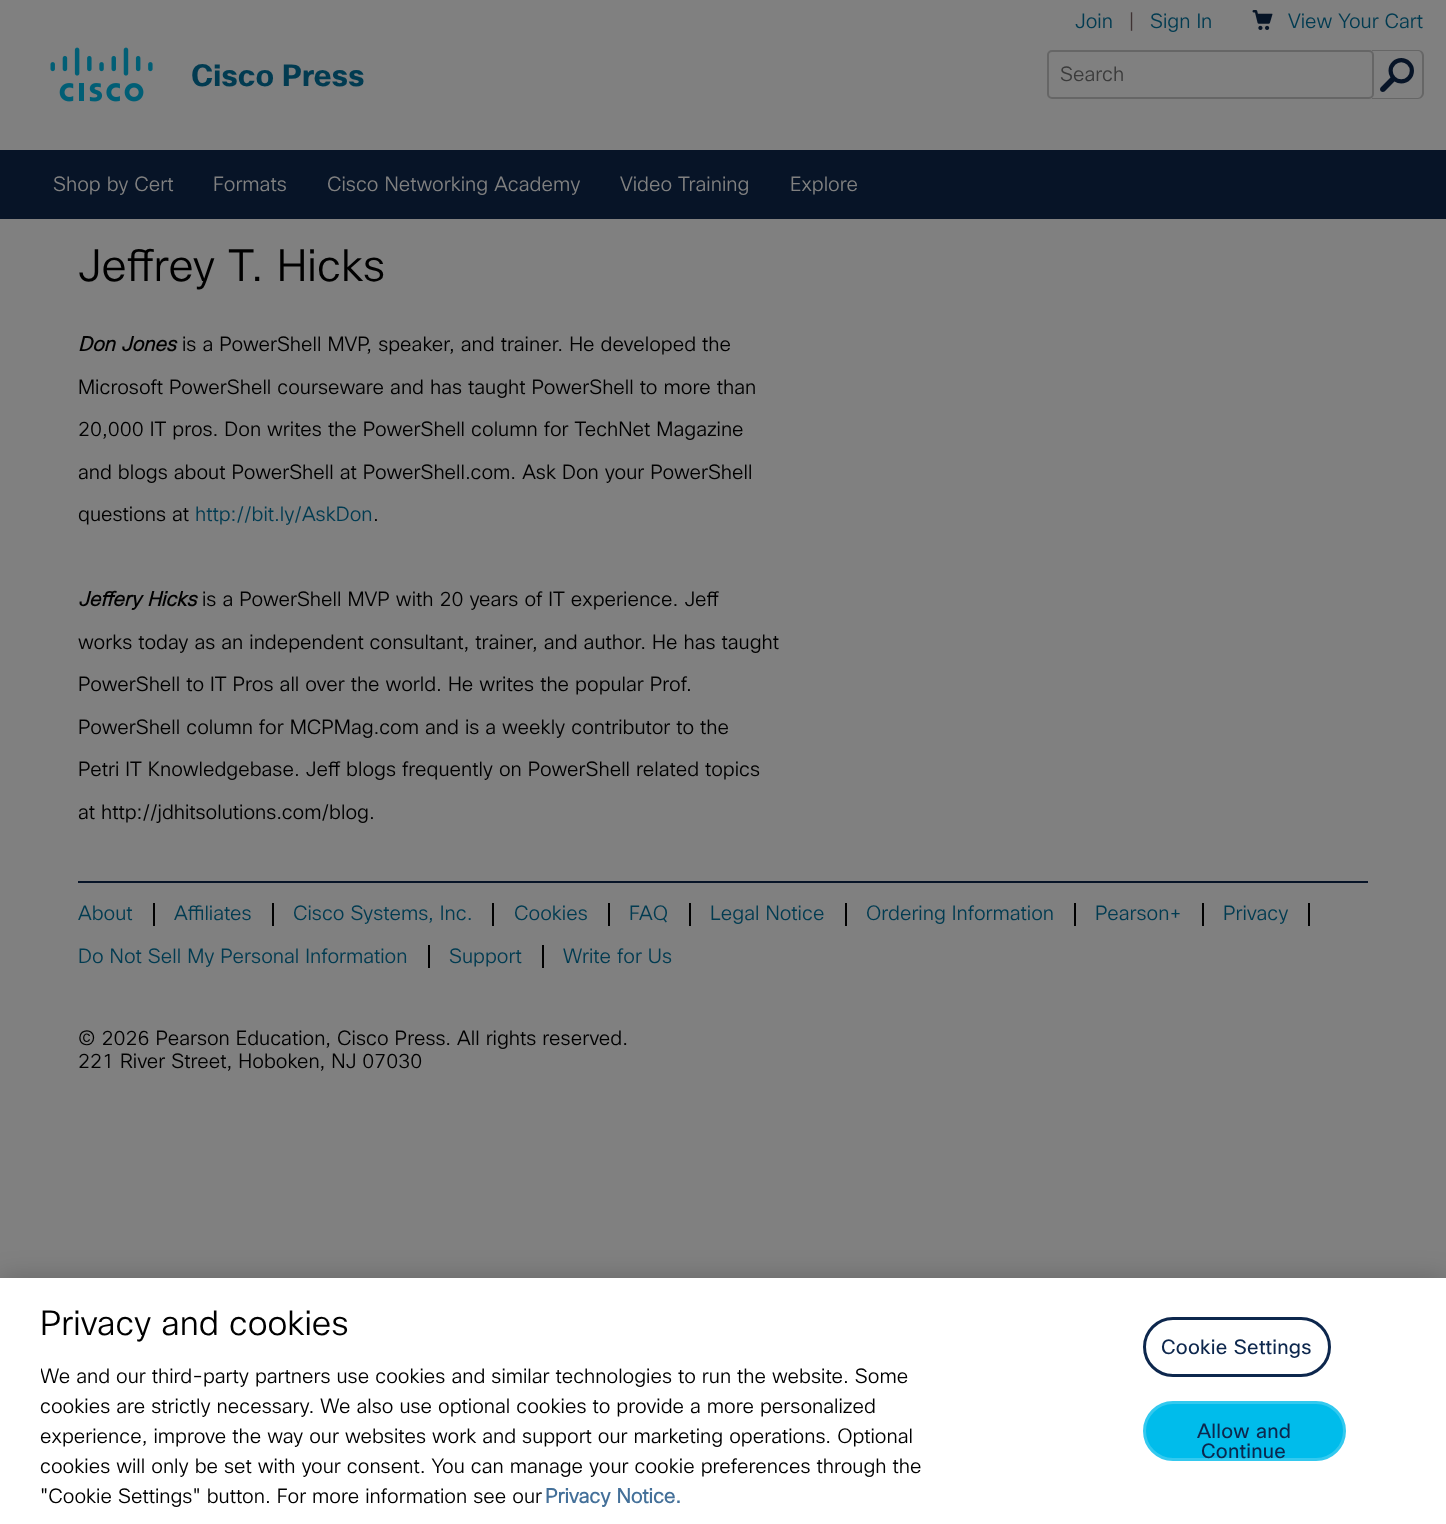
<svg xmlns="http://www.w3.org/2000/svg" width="1446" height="1524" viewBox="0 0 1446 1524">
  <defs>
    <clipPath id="clip1"><rect x="41" y="1302" width="904" height="210"/></clipPath>
  </defs>
  <rect width="100%" height="100%" fill="rgb(128,128,128)"/>
  <image x="50" y="47" width="103" height="55" href="pic1.png"/>
  <text x="191" y="86" font-family="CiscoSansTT" font-size="30" font-weight="bold" fill="rgb(1,59,81)">Cisco Press</text>
  <text x="1075" y="28" font-family="CiscoSansTT" font-size="20" font-weight="300" fill="rgb(1,59,81)">Join</text>
  <text x="1128" y="28" font-family="CiscoSansTT" font-size="20" font-weight="300" fill="rgb(63,51,51)">|</text>
  <text x="1150" y="28" font-family="CiscoSansTT" font-size="20" font-weight="300" fill="rgb(1,59,81)">Sign In</text>
  <image x="1252" y="10" width="21" height="20" href="pic2.png"/>
  <text x="1288" y="28" font-family="CiscoSansTT" font-size="20" font-weight="300" fill="rgb(1,59,81)">View Your Cart</text>
  <rect x="1048" y="51" width="325" height="47" rx="4" fill="none" stroke="rgb(102,102,102)" stroke-width="2"/>
  <text x="1060" y="81" font-family="CiscoSansTT" font-size="20" font-weight="300" fill="rgb(59,59,59)">Search</text>
  <path d="M1372 50H1418C1421 50 1424 52 1424 56V93C1424 96 1421 99 1418 99H1372ZM1372 51H1418C1420 51 1422 53 1422 56V93C1422 95 1420 98 1418 98H1372Z" fill="rgb(102,102,102)" fill-rule="evenodd"/>
  <text x="1380" y="92" font-family="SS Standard" font-size="34" fill="rgb(7,20,39)">🔎</text>
  <rect x="0" y="150" width="1446" height="69" fill="rgb(7,20,39)"/>
  <g font-family="CiscoSansTT" font-size="20" font-weight="300" fill="rgb(128,128,128)">
    <text x="53" y="191">Shop by Cert</text>
    <text x="213" y="191">Formats</text>
    <text x="327" y="191">Cisco Networking Academy</text>
    <text x="620" y="191">Video Training</text>
    <text x="790" y="191">Explore</text>
  </g>
  <text x="78" y="281" font-family="CiscoSansTT" font-size="44" font-weight="300" fill="rgb(0,0,0)">Jeffrey T. Hicks</text>
  <text x="78" y="351" font-family="CiscoSansTT" font-size="20" font-weight="bold" font-style="italic" fill="rgb(0,0,0)">Don Jones</text>
  <g font-family="CiscoSansTT" font-size="20" font-weight="300" fill="rgb(0,0,0)">
    <text x="182" y="351">is a PowerShell MVP, speaker, and trainer. He developed the</text>
    <text x="78" y="394">Microsoft PowerShell courseware and has taught PowerShell to more than</text>
    <text x="78" y="436">20,000 IT pros. Don writes the PowerShell column for TechNet Magazine</text>
    <text x="78" y="479">and blogs about PowerShell at PowerShell.com. Ask Don your PowerShell</text>
    <text x="78" y="521">questions at</text>
  </g>
  <text x="195" y="521" font-family="CiscoSansTT" font-size="20" font-weight="300" fill="rgb(1,59,81)">http://bit.ly/AskDon</text>
  <text x="373" y="521" font-family="CiscoSansTT" font-size="20" font-weight="300" fill="rgb(0,0,0)">.</text>
  <text x="78" y="606" font-family="CiscoSansTT" font-size="20" font-weight="bold" font-style="italic" fill="rgb(0,0,0)">Jeffery Hicks</text>
  <g font-family="CiscoSansTT" font-size="20" font-weight="300" fill="rgb(0,0,0)">
    <text x="202" y="606">is a PowerShell MVP with 20 years of IT experience. Jeff</text>
    <text x="78" y="649">works today as an independent consultant, trainer, and author. He has taught</text>
    <text x="78" y="691">PowerShell to IT Pros all over the world. He writes the popular Prof.</text>
    <text x="78" y="734">PowerShell column for MCPMag.com and is a weekly contributor to the</text>
    <text x="78" y="776">Petri IT Knowledgebase. Jeff blogs frequently on PowerShell related topics</text>
    <text x="78" y="819">at http://jdhitsolutions.com/blog.</text>
  </g>
  <rect x="78" y="881" width="1290" height="2" fill="rgb(7,20,39)"/>
  <rect x="153" y="903" width="2" height="23" fill="rgb(0,0,0)"/>
  <text x="78" y="920" font-family="CiscoSansTT" font-size="20" font-weight="300" fill="rgb(1,59,81)">About</text>
  <rect x="272" y="903" width="2" height="23" fill="rgb(0,0,0)"/>
  <text x="174" y="920" font-family="CiscoSansTT" font-size="20" font-weight="300" fill="rgb(1,59,81)">Affiliates</text>
  <rect x="492" y="903" width="2" height="23" fill="rgb(0,0,0)"/>
  <text x="293" y="920" font-family="CiscoSansTT" font-size="20" font-weight="300" fill="rgb(1,59,81)">Cisco Systems, Inc.</text>
  <rect x="608" y="903" width="2" height="23" fill="rgb(0,0,0)"/>
  <text x="514" y="920" font-family="CiscoSansTT" font-size="20" font-weight="300" fill="rgb(1,59,81)">Cookies</text>
  <rect x="689" y="903" width="2" height="23" fill="rgb(0,0,0)"/>
  <text x="629" y="920" font-family="CiscoSansTT" font-size="20" font-weight="300" fill="rgb(1,59,81)">FAQ</text>
  <rect x="845" y="903" width="2" height="23" fill="rgb(0,0,0)"/>
  <text x="710" y="920" font-family="CiscoSansTT" font-size="20" font-weight="300" fill="rgb(1,59,81)">Legal Notice</text>
  <rect x="1074" y="903" width="2" height="23" fill="rgb(0,0,0)"/>
  <text x="866" y="920" font-family="CiscoSansTT" font-size="20" font-weight="300" fill="rgb(1,59,81)">Ordering Information</text>
  <rect x="1202" y="903" width="2" height="23" fill="rgb(0,0,0)"/>
  <text x="1095" y="920" font-family="CiscoSansTT" font-size="20" font-weight="300" fill="rgb(1,59,81)">Pearson+</text>
  <rect x="1308" y="903" width="2" height="23" fill="rgb(0,0,0)"/>
  <text x="1223" y="920" font-family="CiscoSansTT" font-size="20" font-weight="300" fill="rgb(1,59,81)">Privacy</text>
  <rect x="428" y="945" width="2" height="23" fill="rgb(0,0,0)"/>
  <text x="78" y="963" font-family="CiscoSansTT" font-size="20" font-weight="300" fill="rgb(1,59,81)">Do Not Sell My Personal Information</text>
  <rect x="542" y="945" width="2" height="23" fill="rgb(0,0,0)"/>
  <g font-family="CiscoSansTT" font-size="20" font-weight="300" fill="rgb(1,59,81)">
    <text x="449" y="963">Support</text>
    <text x="563" y="963">Write for Us</text>
  </g>
  <g font-family="CiscoSansTT" font-size="20" font-weight="300" fill="rgb(0,0,0)">
    <text>
      <tspan x="78" y="1045">© 2026 Pearson Education, Cisco Press. All rights reserved.</tspan>
      <tspan x="78" y="1068">221 River Street, Hoboken, NJ 07030</tspan>
    </text>
  </g>
  <rect x="0" y="1278" width="1446" height="246" fill="rgba(0,0,0,0.2)" filter="blur(13.5px)"/>
  <rect x="0" y="1278" width="1446" height="246" fill="rgb(255,255,255)"/>
  <text x="40" y="1335" font-family="CiscoSansTT" font-size="34" font-weight="300" fill="rgb(0,0,0)">Privacy and cookies</text>
  <g clip-path="url(#clip1)">
    <text x="40" y="1383" font-family="CiscoSansTT" font-size="20" font-weight="300" fill="rgb(0,0,0)">We and our third-party partners use cookies and similar technologies to run the website. Some</text>
  </g>
  <g font-family="CiscoSansTT" font-size="20" font-weight="300" fill="rgb(0,0,0)">
    <text>
      <tspan x="40" y="1413">cookies are strictly necessary. We also use optional cookies to provide a more personalized</tspan>
      <tspan x="40" y="1443">experience, improve the way our websites work and support our marketing operations. Optional</tspan>
      <tspan x="40" y="1473">cookies will only be set with your consent. You can manage your cookie preferences through the</tspan>
      <tspan x="40" y="1503">"Cookie Settings" button. For more information see our</tspan>
    </text>
  </g>
  <text x="545" y="1503" font-family="'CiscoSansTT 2'" font-size="20" font-weight="bold" fill="rgb(68,112,153)">Privacy Notice.</text>
  <rect x="1144.5" y="1318.5" width="185" height="57" rx="28.5" fill="none" stroke="rgb(13,39,77)" stroke-width="3"/>
  <text x="1161" y="1354" font-family="CiscoSansTT" font-size="20" letter-spacing="0.25" fill="rgb(13,39,77)">Cookie Settings</text>
  <rect x="1144.5" y="1402.5" width="200" height="57" rx="28.5" fill="rgb(0,188,235)" stroke="rgb(51,201,239)" stroke-width="3"/>
  <g font-family="CiscoSansTT" font-size="20" letter-spacing="0.25" fill="rgb(13,39,77)">
    <text x="1197" y="1438">Allow and</text>
    <text x="1201" y="1458">Continue</text>
  </g>
</svg>
